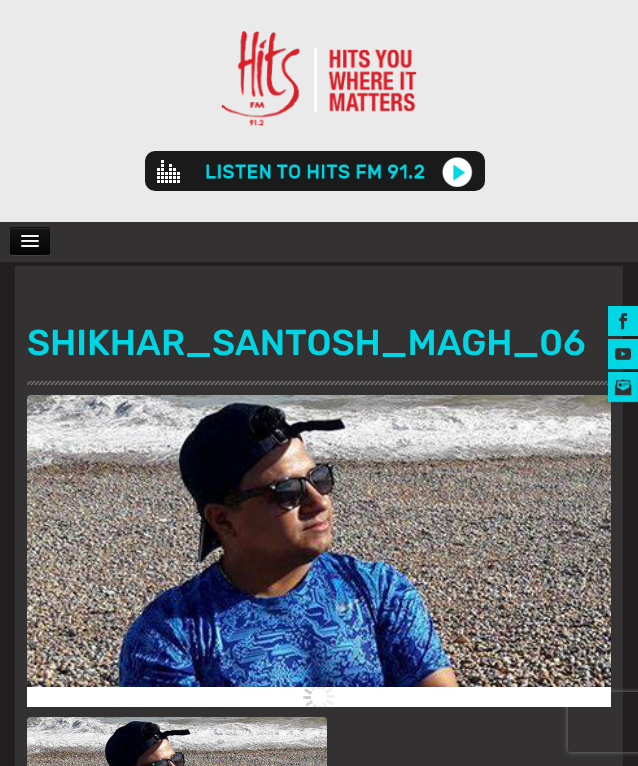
<svg xmlns="http://www.w3.org/2000/svg" width="638" height="766" viewBox="0 0 638 766">
  <defs>
    <clipPath id="clip1"><rect x="10" y="227" width="40" height="28" rx="2"/></clipPath>
    <linearGradient id="g1" gradientUnits="userSpaceOnUse" x1="30" y1="228" x2="30" y2="254"><stop offset="0" stop-color="rgb(21,21,21)"/><stop offset="1" stop-color="rgb(4,4,4)"/></linearGradient>
    <clipPath id="clip2"><path d="M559 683H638V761H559ZM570 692H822C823 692 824 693 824 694V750C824 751 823 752 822 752H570C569 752 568 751 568 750V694C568 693 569 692 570 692Z" clip-rule="evenodd"/></clipPath>
  </defs>
  <rect width="100%" height="100%" fill="rgb(35,31,32)"/>
  <rect x="0" y="0" width="638" height="222" fill="rgb(234,234,234)"/>
  <image x="221" y="31" width="196" height="95" href="pic1.png"/>
  <rect x="145" y="151" width="340" height="40" rx="10" fill="rgb(26,26,26)"/>
  <image x="157" y="160" width="23" height="23" href="pic2.png"/>
  <image x="442" y="157" width="31" height="31" href="pic3.png"/>
  <image x="205" y="164" width="220" height="15" href="pic4.png"/>
  <rect x="0" y="222" width="638" height="40" fill="rgb(51,49,50)"/>
  <path d="M10 253C10 257 14 256 18 256H42C46 256 50 257 50 253C50 254 49 255 48 255H12C11 255 10 254 10 253Z" fill="rgb(66,64,65)"/>
  <rect x="10" y="227" width="40" height="28" rx="2" fill="rgb(14,14,14)"/>
  <g clip-path="url(#clip1)">
    <rect x="10" y="228" width="40" height="26" fill="url(#g1)"/>
  </g>
  <path d="M12 229H48.5L49 230C49 226.5 45 228 42 228H18C14.5 228 11 226.5 11 230Z" fill="rgb(44,44,44)"/>
  <path d="M49 254L48 254.5H12L11 254" fill="none" stroke="rgba(0,0,0,0.25)"/>
  <path d="M21 236.5C20 238.5 24.5 238 24.5 238H35.5C35.5 238 40 238.5 39 236.5C38 237.5 31.5 237 30 237C28.5 237 22 237.5 21 236.5Z" fill="rgb(11,11,11)"/>
  <rect x="21" y="235" width="18" height="2" rx="1" fill="rgb(245,245,245)"/>
  <path d="M21 241.5C20 243.5 24.5 243 24.5 243H35.5C35.5 243 40 243.5 39 241.5C38 242.5 31.5 242 30 242C28.5 242 22 242.5 21 241.5Z" fill="rgb(9,9,9)"/>
  <rect x="21" y="240" width="18" height="2" rx="1" fill="rgb(245,245,245)"/>
  <rect x="21" y="245" width="18" height="2" rx="1" fill="rgb(245,245,245)"/>
  <rect x="15" y="266" width="608" height="500" fill="rgb(51,49,50)"/>
  <image x="27" y="381" width="581" height="4" href="pic5.png"/>
  <text x="27" y="355" font-family="Rubik" font-size="36" font-weight="500" fill="rgb(0,214,227)">SHIKHAR_SANTOSH_MAGH_06</text>
  <image x="27" y="395" width="584" height="292" href="pic6.png"/>
  <g clip-path="url(#clip2)">
    <rect x="568" y="692" width="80" height="60" rx="2" fill="rgb(128,128,128)" filter="blur(2.5px)"/>
  </g>
  <rect x="27" y="687" width="584" height="20" fill="rgb(255,255,255)"/>
  <image x="303" y="687" width="32" height="20" href="pic7.png"/>
  <image x="27" y="717" width="300" height="49" href="pic8.png"/>
  <image x="608" y="306" width="30" height="30" href="pic9.png"/>
  <image x="608" y="339" width="30" height="30" href="pic10.png"/>
  <image x="608" y="372" width="30" height="31" href="pic11.png"/>
</svg>
